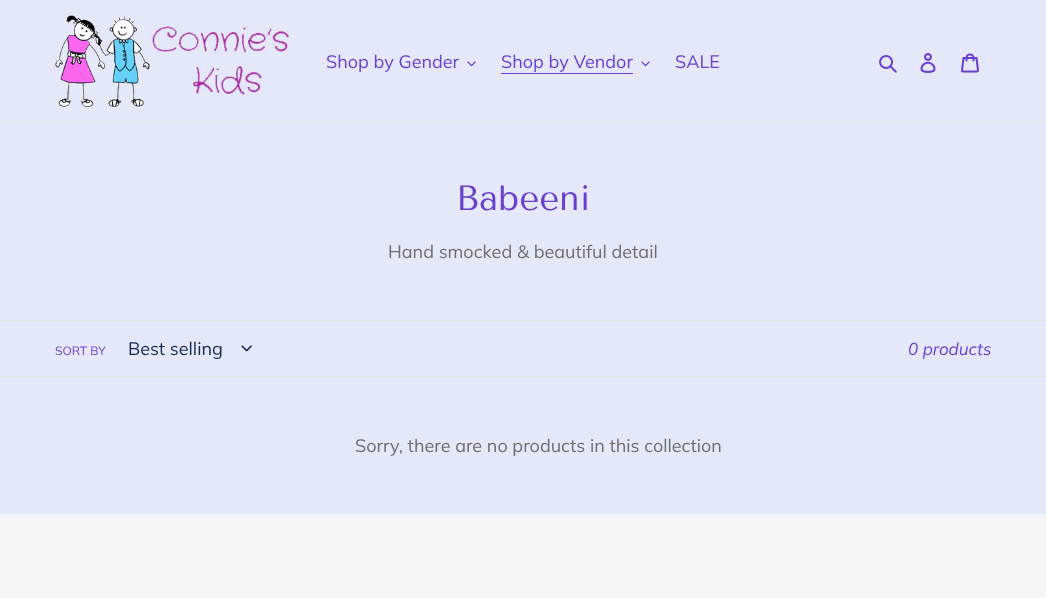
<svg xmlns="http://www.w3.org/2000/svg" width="1046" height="598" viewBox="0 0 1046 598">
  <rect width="100%" height="100%" fill="rgb(228,232,249)"/>
  <rect x="0" y="122" width="1046" height="1" fill="rgb(228,228,228)"/>
  <image x="55" y="15" width="234" height="92" href="pic1.png"/>
  <text x="326" y="68" font-family="Muli" font-size="18" fill="rgb(106,64,204)">Shop by Gender</text>
  <image x="467" y="61" width="9" height="6" href="pic2.png"/>
  <text x="501" y="68" font-family="Muli" font-size="18" fill="rgb(106,64,204)">Shop by Vendor</text>
  <rect x="501" y="73" width="132" height="1" fill="rgb(106,64,204)"/>
  <image x="641" y="61" width="9" height="6" href="pic2.png"/>
  <text x="675" y="68" font-family="Muli" font-size="18" fill="rgb(106,64,204)">SALE</text>
  <image x="879" y="55" width="18" height="18" href="pic3.png"/>
  <image x="920" y="53" width="16" height="20" href="pic4.png"/>
  <image x="961" y="53" width="18" height="20" href="pic5.png"/>
  <text x="456" y="210" font-family="Tenor Sans" font-size="35" fill="rgb(106,64,204)">Babeeni</text>
  <text x="388" y="258" font-family="Muli" font-size="18" fill="rgb(109,109,109)">Hand smocked &amp; beautiful detail</text>
  <rect x="0" y="320" width="1046" height="1" fill="rgb(228,228,228)"/>
  <rect x="0" y="376" width="1046" height="1" fill="rgb(228,228,228)"/>
  <text x="55" y="355" font-family="Muli" font-size="12" fill="rgb(106,64,204)">SORT BY</text>
  <text x="128" y="355" font-family="Muli" font-size="18" fill="rgb(22,41,80)">Best selling</text>
  <image x="241" y="345" width="11" height="7" href="pic6.png"/>
  <text x="908" y="355" font-family="Muli" font-size="17" font-style="italic" fill="rgb(106,64,204)">0 products</text>
  <text x="355" y="452" font-family="Muli" font-size="18" fill="rgb(109,109,109)">Sorry, there are no products in this collection</text>
  <rect x="0" y="514" width="1046" height="84" fill="rgb(246,246,246)"/>
</svg>
